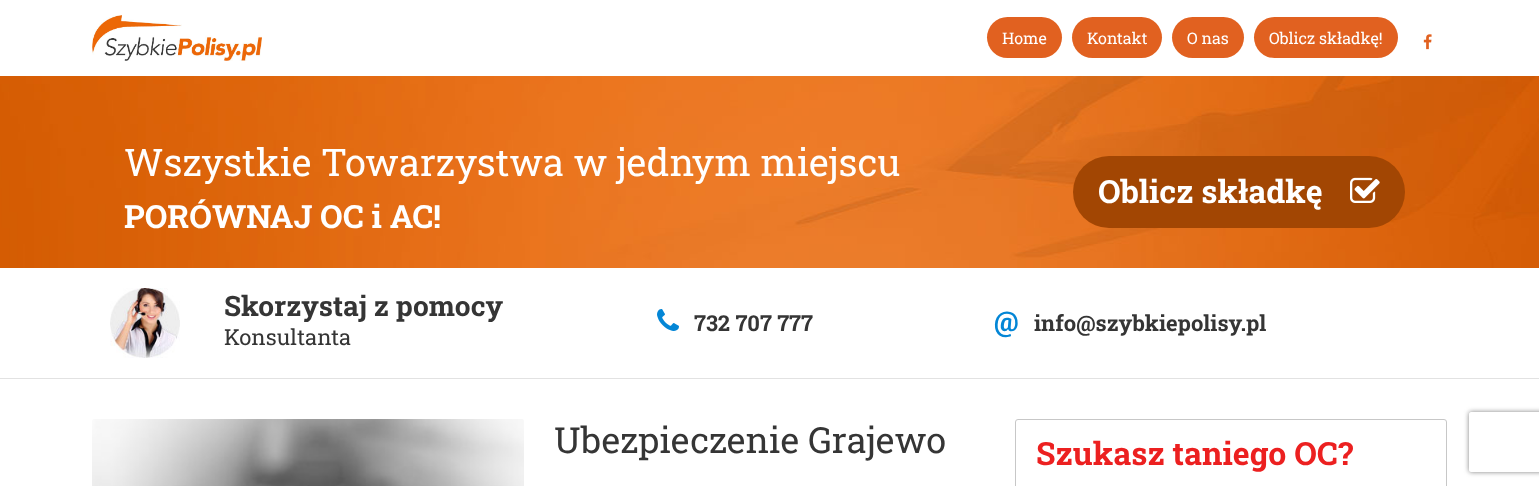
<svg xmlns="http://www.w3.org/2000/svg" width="1539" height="486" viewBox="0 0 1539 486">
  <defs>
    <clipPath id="clip1"><path d="M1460 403H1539V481H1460ZM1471 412H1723C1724 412 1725 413 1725 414V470C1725 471 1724 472 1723 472H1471C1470 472 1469 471 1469 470V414C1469 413 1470 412 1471 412Z" clip-rule="evenodd"/></clipPath>
  </defs>
  <rect width="100%" height="100%" fill="rgb(255,255,255)"/>
  <image x="92" y="15" width="170" height="46" href="pic1.png"/>
  <rect x="987" y="17" width="75" height="41" rx="20.5" fill="rgb(225,97,32)"/>
  <text x="1002" y="44" font-family="Roboto Slab" font-size="16" fill="rgb(255,255,255)">Home</text>
  <rect x="1072" y="17" width="90" height="41" rx="20.5" fill="rgb(225,97,32)"/>
  <text x="1087" y="44" font-family="Roboto Slab" font-size="16" fill="rgb(255,255,255)">Kontakt</text>
  <rect x="1172" y="17" width="72" height="41" rx="20.5" fill="rgb(225,97,32)"/>
  <text x="1187" y="44" font-family="Roboto Slab" font-size="16" fill="rgb(255,255,255)">O nas</text>
  <rect x="1254" y="17" width="144" height="41" rx="20.5" fill="rgb(225,97,32)"/>
  <text x="1269" y="44" font-family="Roboto Slab" font-size="16" fill="rgb(255,255,255)">Oblicz składkę!</text>
  <image x="1423" y="34" width="9" height="16" href="pic2.png"/>
  <image x="0" y="76" width="1539" height="192" href="pic3.png"/>
  <text x="124" y="176" font-family="Roboto Slab" font-size="38" fill="rgb(255,255,255)">Wszystkie Towarzystwa w jednym miejscu</text>
  <text x="124" y="228" font-family="Roboto Slab" font-size="32" font-weight="bold" fill="rgb(255,255,255)">PORÓWNAJ OC i AC!</text>
  <rect x="1073" y="156" width="332" height="72" rx="36" fill="rgb(162,70,3)"/>
  <text x="1098" y="203" font-family="Roboto Slab" font-size="32" font-weight="bold" fill="rgb(255,255,255)">Oblicz składkę</text>
  <image x="1350" y="177" width="30" height="26" href="pic4.png"/>
  <rect x="0" y="378" width="1539" height="1" fill="rgb(226,226,226)"/>
  <image x="110" y="288" width="70" height="70" href="pic5.png"/>
  <text x="224" y="316" font-family="Roboto Slab" font-size="28" font-weight="bold" fill="rgb(53,53,53)">Skorzystaj z pomocy</text>
  <text x="224" y="345" font-family="Roboto Slab" font-size="22" fill="rgb(53,53,53)">Konsultanta</text>
  <image x="657" y="309" width="22" height="22" href="pic6.png"/>
  <text x="694" y="331" font-family="Roboto Slab" font-size="22" font-weight="bold" fill="rgb(53,53,53)">732 707 777</text>
  <text x="994" y="331" font-family="Roboto Slab" font-size="28" font-weight="bold" fill="rgb(3,134,214)">@</text>
  <text x="1034" y="331" font-family="Roboto Slab" font-size="22" font-weight="bold" fill="rgb(53,53,53)">info@szybkiepolisy.pl</text>
  <image x="92" y="419" width="432" height="67" href="pic7.png"/>
  <text x="554" y="453" font-family="Roboto Slab" font-size="36" fill="rgb(53,53,53)">Ubezpieczenie Grajewo</text>
  <rect x="1015.5" y="419.5" width="431" height="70" rx="2.5" fill="none" stroke="rgb(199,199,199)"/>
  <text x="1036" y="465" font-family="Roboto Slab" font-size="32" font-weight="bold" fill="rgb(236,32,32)">Szukasz taniego OC?</text>
  <g clip-path="url(#clip1)">
    <rect x="1469" y="412" width="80" height="60" rx="2" fill="rgb(128,128,128)" filter="blur(2.5px)"/>
  </g>
</svg>
